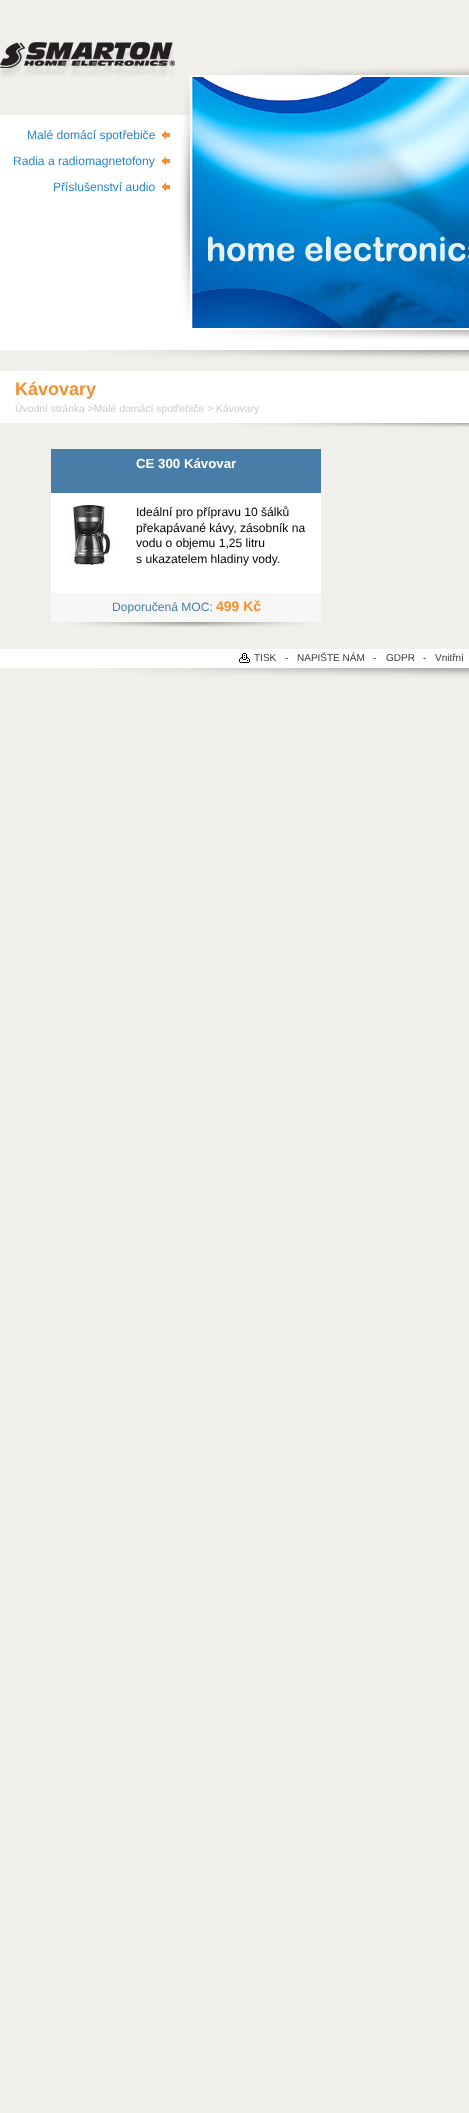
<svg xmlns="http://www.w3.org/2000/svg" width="469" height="2113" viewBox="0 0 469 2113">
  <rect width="100%" height="100%" fill="rgb(240,239,235)"/>
  <rect x="0" y="339" width="469" height="11" fill="rgb(255,255,255)"/>
  <image x="0" y="0" width="469" height="339" href="pic1.png"/>
  <image x="0" y="36" width="175" height="42" href="pic2.png"/>
  <image x="162" y="131" width="8" height="8" href="pic3.png"/>
  <text x="27" y="139" font-family="Liberation Sans" font-size="12.1" fill="rgb(42,134,207)">Malé domácí spotřebiče</text>
  <image x="162" y="157" width="8" height="8" href="pic3.png"/>
  <text x="13" y="165" font-family="Liberation Sans" font-size="12.1" fill="rgb(42,134,207)">Radia a radiomagnetofony</text>
  <image x="162" y="183" width="8" height="8" href="pic3.png"/>
  <text x="53" y="191" font-family="Liberation Sans" font-size="12.1" fill="rgb(42,134,207)">Příslušenství audio</text>
  <rect x="190" y="75" width="1" height="4" fill="rgb(255,255,255)"/>
  <image x="192" y="77" width="277" height="251" href="pic4.png"/>
  <image x="2" y="350" width="467" height="21" href="pic5.png"/>
  <rect x="0" y="371" width="469" height="52" fill="rgb(255,255,255)"/>
  <image x="0" y="423" width="469" height="5" href="pic6.png"/>
  <text x="15" y="395" font-family="Liberation Sans" font-size="18" font-weight="bold" fill="rgb(244,143,51)">Kávovary</text>
  <text x="15" y="412" font-family="Liberation Sans" font-size="10.4" fill="rgb(204,204,204)">Úvodní stránka &gt;Malé domácí spotřebiče &gt; Kávovary</text>
  <rect x="51" y="493" width="270" height="100" fill="rgb(255,255,255)"/>
  <image x="51" y="622" width="270" height="6" href="pic7.png"/>
  <rect x="51" y="449" width="270" height="44" fill="rgb(72,125,167)"/>
  <text x="136" y="468" font-family="Liberation Sans" font-size="13.25" font-weight="bold" fill="rgb(255,255,255)">CE 300 Kávovar</text>
  <image x="69" y="505" width="48" height="60" href="pic8.png"/>
  <g font-family="Liberation Sans" font-size="12.1" fill="rgb(0,0,0)">
    <text>
      <tspan x="136" y="516">Ideální pro přípravu 10 šálků</tspan>
      <tspan x="136" y="532">překapávané kávy, zásobník na</tspan>
      <tspan x="136" y="547">vodu o objemu 1,25 litru</tspan>
      <tspan x="136" y="563">s ukazatelem hladiny vody.</tspan>
    </text>
  </g>
  <rect x="51" y="593" width="270" height="29" fill="rgb(247,247,245)"/>
  <text x="112" y="611" font-family="Liberation Sans" font-size="12.1" fill="rgb(72,125,167)">Doporučená MOC:</text>
  <text x="216" y="611" font-family="Liberation Sans" font-size="14" font-weight="bold" fill="rgb(244,143,51)">499 Kč</text>
  <rect x="0" y="649" width="469" height="19" fill="rgb(255,255,255)"/>
  <image x="0" y="668" width="469" height="21" href="pic9.png"/>
  <image x="239" y="653" width="11" height="10" href="pic10.png"/>
  <g font-family="Liberation Sans" font-size="10" fill="rgb(54,54,54)">
    <text x="254" y="661">TISK</text>
    <text x="285" y="661">-</text>
    <text x="297" y="661">NAPIŠTE NÁM</text>
    <text x="373" y="661">-</text>
    <text x="386" y="661">GDPR</text>
    <text x="423" y="661">-</text>
    <text x="435" y="661">Vnitřní</text>
  </g>
</svg>
